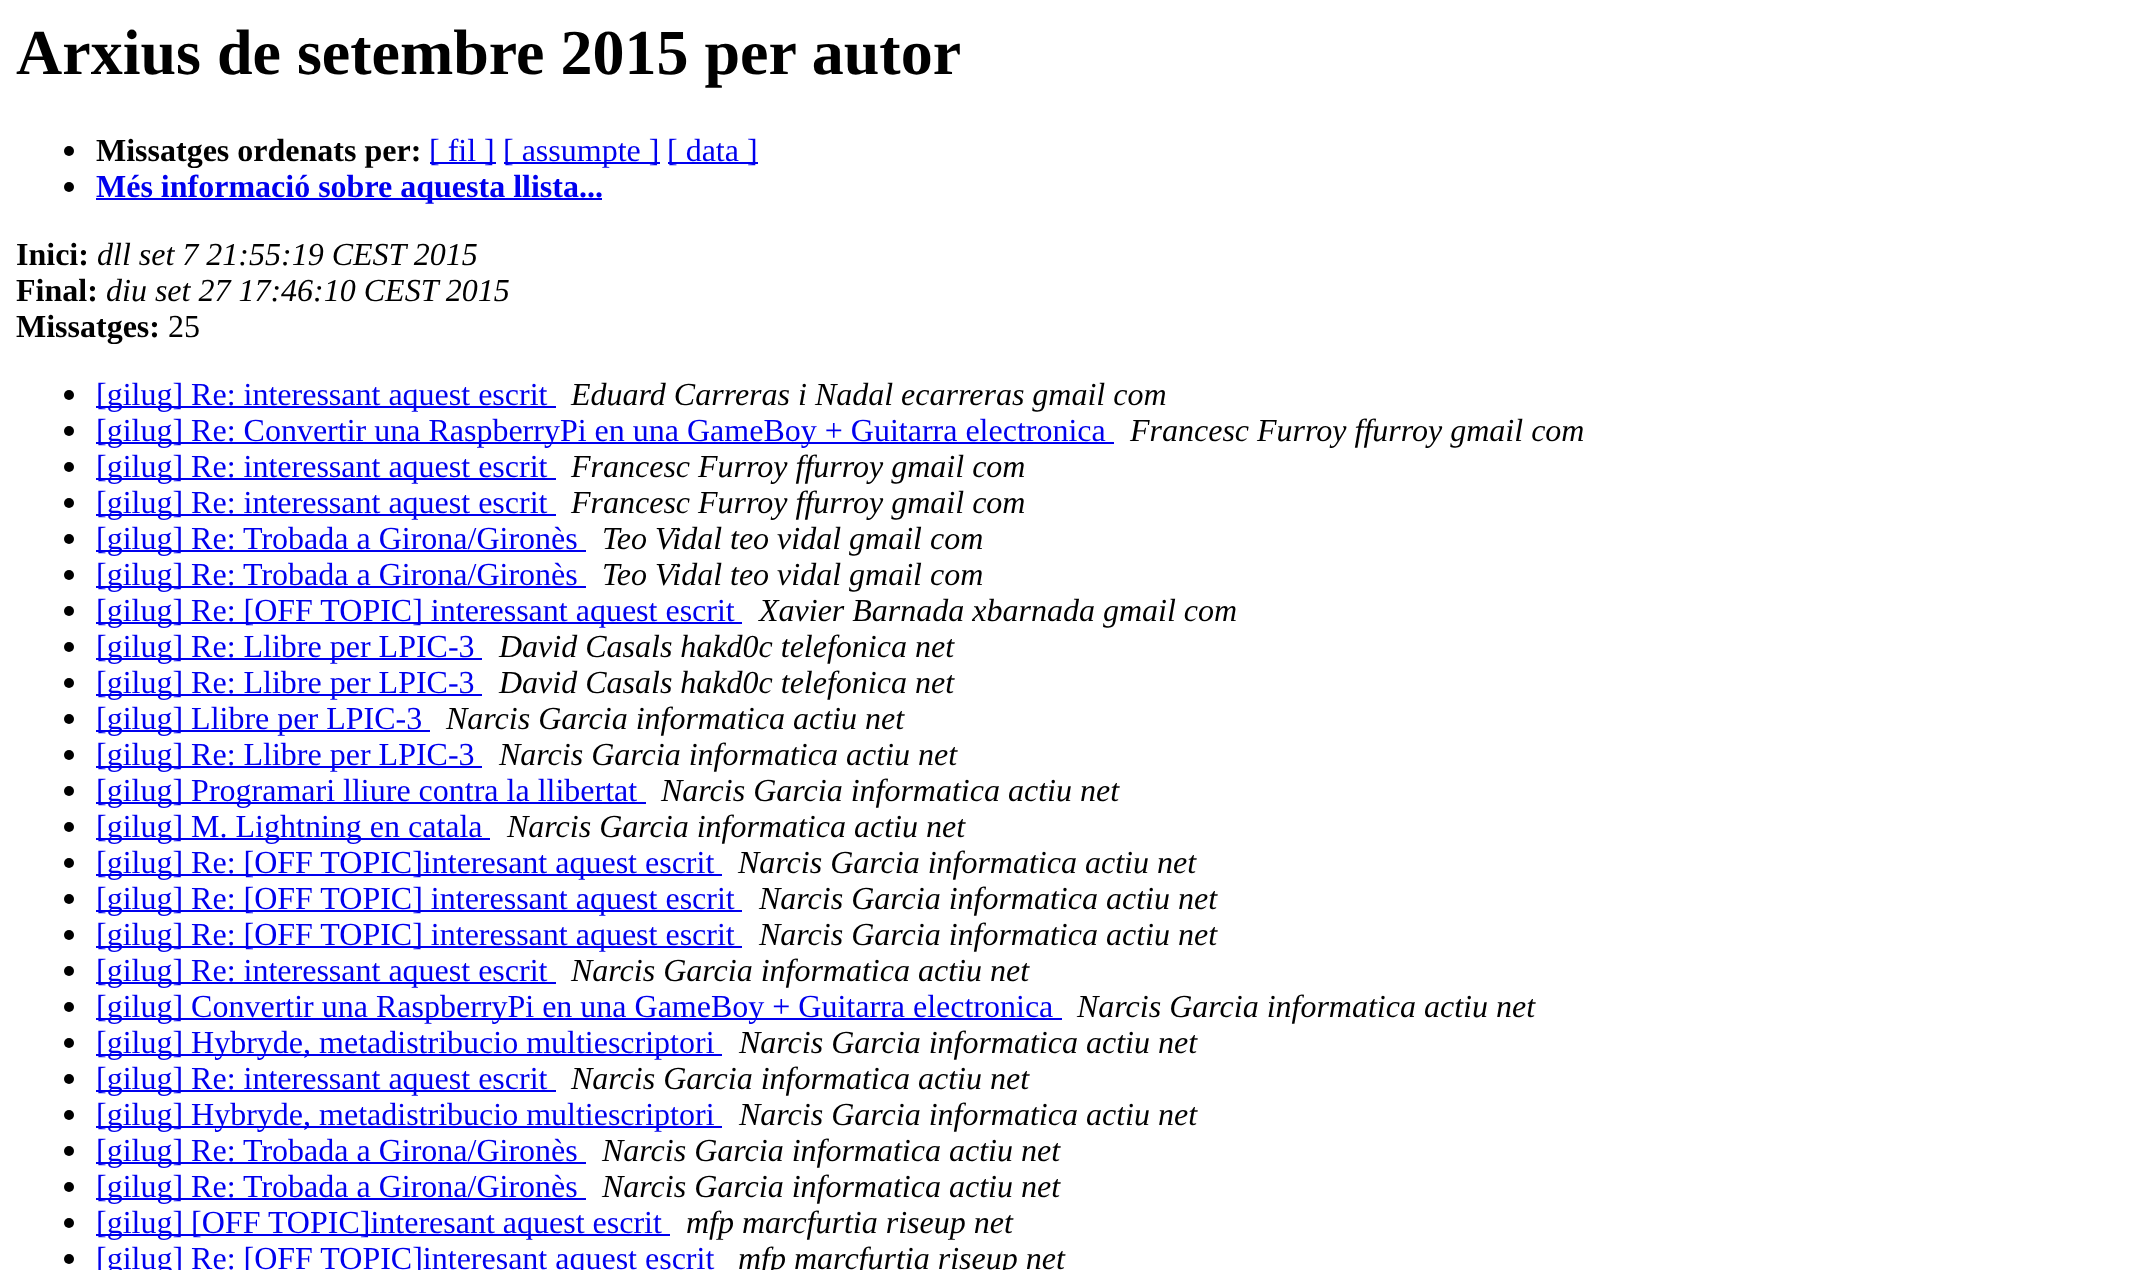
<svg xmlns="http://www.w3.org/2000/svg" width="2142" height="1270" viewBox="0 0 2142 1270">
  <rect width="100%" height="100%" fill="rgb(255,255,255)"/>
  <text x="16" y="74" font-family="Liberation Serif" font-size="64" font-weight="bold" fill="rgb(0,0,0)">Arxius de setembre 2015 per autor</text>
  <circle cx="69" cy="151" r="5" fill="rgb(0,0,0)"/>
  <text x="96" y="161" font-family="Liberation Serif" font-size="32" font-weight="bold" fill="rgb(0,0,0)">Missatges ordenats per:</text>
  <rect x="430" y="162" width="66" height="2" fill="rgb(0,0,238)"/>
  <text x="429" y="161" font-family="Liberation Serif" font-size="32" fill="rgb(0,0,238)">[ fil ]</text>
  <rect x="504" y="162" width="156" height="2" fill="rgb(0,0,238)"/>
  <text x="503" y="161" font-family="Liberation Serif" font-size="32" fill="rgb(0,0,238)">[ assumpte ]</text>
  <rect x="668" y="162" width="90" height="2" fill="rgb(0,0,238)"/>
  <text x="667" y="161" font-family="Liberation Serif" font-size="32" fill="rgb(0,0,238)">[ data ]</text>
  <circle cx="69" cy="187" r="5" fill="rgb(0,0,0)"/>
  <rect x="96" y="198" width="506" height="2" fill="rgb(0,0,238)"/>
  <text x="96" y="197" font-family="Liberation Serif" font-size="32" font-weight="bold" fill="rgb(0,0,238)">Més informació sobre aquesta llista...</text>
  <text x="16" y="265" font-family="Liberation Serif" font-size="32" font-weight="bold" fill="rgb(0,0,0)">Inici:</text>
  <text x="97" y="265" font-family="Liberation Serif" font-size="32" font-style="italic" fill="rgb(0,0,0)">dll set 7 21:55:19 CEST 2015</text>
  <text x="16" y="301" font-family="Liberation Serif" font-size="32" font-weight="bold" fill="rgb(0,0,0)">Final:</text>
  <text x="106" y="301" font-family="Liberation Serif" font-size="32" font-style="italic" fill="rgb(0,0,0)">diu set 27 17:46:10 CEST 2015</text>
  <text x="16" y="337" font-family="Liberation Serif" font-size="32" font-weight="bold" fill="rgb(0,0,0)">Missatges:</text>
  <text x="168" y="337" font-family="Liberation Serif" font-size="32" fill="rgb(0,0,0)">25</text>
  <circle cx="69" cy="395" r="5" fill="rgb(0,0,0)"/>
  <rect x="96" y="406" width="460" height="2" fill="rgb(0,0,238)"/>
  <text x="96" y="405" font-family="Liberation Serif" font-size="32" fill="rgb(0,0,238)">[gilug] Re: interessant aquest escrit</text>
  <text x="571" y="405" font-family="Liberation Serif" font-size="32" font-style="italic" fill="rgb(0,0,0)">Eduard Carreras i Nadal ecarreras gmail com</text>
  <circle cx="69" cy="431" r="5" fill="rgb(0,0,0)"/>
  <rect x="96" y="442" width="1018" height="2" fill="rgb(0,0,238)"/>
  <text x="96" y="441" font-family="Liberation Serif" font-size="32" fill="rgb(0,0,238)">[gilug] Re: Convertir una RaspberryPi en una GameBoy + Guitarra electronica</text>
  <text x="1130" y="441" font-family="Liberation Serif" font-size="32" font-style="italic" fill="rgb(0,0,0)">Francesc Furroy ffurroy gmail com</text>
  <circle cx="69" cy="467" r="5" fill="rgb(0,0,0)"/>
  <rect x="96" y="478" width="460" height="2" fill="rgb(0,0,238)"/>
  <text x="96" y="477" font-family="Liberation Serif" font-size="32" fill="rgb(0,0,238)">[gilug] Re: interessant aquest escrit</text>
  <text x="571" y="477" font-family="Liberation Serif" font-size="32" font-style="italic" fill="rgb(0,0,0)">Francesc Furroy ffurroy gmail com</text>
  <circle cx="69" cy="503" r="5" fill="rgb(0,0,0)"/>
  <rect x="96" y="514" width="460" height="2" fill="rgb(0,0,238)"/>
  <text x="96" y="513" font-family="Liberation Serif" font-size="32" fill="rgb(0,0,238)">[gilug] Re: interessant aquest escrit</text>
  <text x="571" y="513" font-family="Liberation Serif" font-size="32" font-style="italic" fill="rgb(0,0,0)">Francesc Furroy ffurroy gmail com</text>
  <circle cx="69" cy="539" r="5" fill="rgb(0,0,0)"/>
  <rect x="96" y="550" width="490" height="2" fill="rgb(0,0,238)"/>
  <text x="96" y="549" font-family="Liberation Serif" font-size="32" fill="rgb(0,0,238)">[gilug] Re: Trobada a Girona/Gironès</text>
  <text x="602" y="549" font-family="Liberation Serif" font-size="32" font-style="italic" fill="rgb(0,0,0)">Teo Vidal teo vidal gmail com</text>
  <circle cx="69" cy="575" r="5" fill="rgb(0,0,0)"/>
  <rect x="96" y="586" width="490" height="2" fill="rgb(0,0,238)"/>
  <text x="96" y="585" font-family="Liberation Serif" font-size="32" fill="rgb(0,0,238)">[gilug] Re: Trobada a Girona/Gironès</text>
  <text x="602" y="585" font-family="Liberation Serif" font-size="32" font-style="italic" fill="rgb(0,0,0)">Teo Vidal teo vidal gmail com</text>
  <circle cx="69" cy="611" r="5" fill="rgb(0,0,0)"/>
  <rect x="96" y="622" width="646" height="2" fill="rgb(0,0,238)"/>
  <text x="96" y="621" font-family="Liberation Serif" font-size="32" fill="rgb(0,0,238)">[gilug] Re: [OFF TOPIC] interessant aquest escrit</text>
  <text x="759" y="621" font-family="Liberation Serif" font-size="32" font-style="italic" fill="rgb(0,0,0)">Xavier Barnada xbarnada gmail com</text>
  <circle cx="69" cy="647" r="5" fill="rgb(0,0,0)"/>
  <rect x="96" y="658" width="386" height="2" fill="rgb(0,0,238)"/>
  <text x="96" y="657" font-family="Liberation Serif" font-size="32" fill="rgb(0,0,238)">[gilug] Re: Llibre per LPIC-3</text>
  <text x="499" y="657" font-family="Liberation Serif" font-size="32" font-style="italic" fill="rgb(0,0,0)">David Casals hakd0c telefonica net</text>
  <circle cx="69" cy="683" r="5" fill="rgb(0,0,0)"/>
  <rect x="96" y="694" width="386" height="2" fill="rgb(0,0,238)"/>
  <text x="96" y="693" font-family="Liberation Serif" font-size="32" fill="rgb(0,0,238)">[gilug] Re: Llibre per LPIC-3</text>
  <text x="499" y="693" font-family="Liberation Serif" font-size="32" font-style="italic" fill="rgb(0,0,0)">David Casals hakd0c telefonica net</text>
  <circle cx="69" cy="719" r="5" fill="rgb(0,0,0)"/>
  <rect x="96" y="730" width="334" height="2" fill="rgb(0,0,238)"/>
  <text x="96" y="729" font-family="Liberation Serif" font-size="32" fill="rgb(0,0,238)">[gilug] Llibre per LPIC-3</text>
  <text x="446" y="729" font-family="Liberation Serif" font-size="32" font-style="italic" fill="rgb(0,0,0)">Narcis Garcia informatica actiu net</text>
  <circle cx="69" cy="755" r="5" fill="rgb(0,0,0)"/>
  <rect x="96" y="766" width="386" height="2" fill="rgb(0,0,238)"/>
  <text x="96" y="765" font-family="Liberation Serif" font-size="32" fill="rgb(0,0,238)">[gilug] Re: Llibre per LPIC-3</text>
  <text x="499" y="765" font-family="Liberation Serif" font-size="32" font-style="italic" fill="rgb(0,0,0)">Narcis Garcia informatica actiu net</text>
  <circle cx="69" cy="791" r="5" fill="rgb(0,0,0)"/>
  <rect x="96" y="802" width="550" height="2" fill="rgb(0,0,238)"/>
  <text x="96" y="801" font-family="Liberation Serif" font-size="32" fill="rgb(0,0,238)">[gilug] Programari lliure contra la llibertat</text>
  <text x="661" y="801" font-family="Liberation Serif" font-size="32" font-style="italic" fill="rgb(0,0,0)">Narcis Garcia informatica actiu net</text>
  <circle cx="69" cy="827" r="5" fill="rgb(0,0,0)"/>
  <rect x="96" y="838" width="394" height="2" fill="rgb(0,0,238)"/>
  <text x="96" y="837" font-family="Liberation Serif" font-size="32" fill="rgb(0,0,238)">[gilug] M. Lightning en catala</text>
  <text x="507" y="837" font-family="Liberation Serif" font-size="32" font-style="italic" fill="rgb(0,0,0)">Narcis Garcia informatica actiu net</text>
  <circle cx="69" cy="863" r="5" fill="rgb(0,0,0)"/>
  <rect x="96" y="874" width="626" height="2" fill="rgb(0,0,238)"/>
  <text x="96" y="873" font-family="Liberation Serif" font-size="32" fill="rgb(0,0,238)">[gilug] Re: [OFF TOPIC]interesant aquest escrit</text>
  <text x="738" y="873" font-family="Liberation Serif" font-size="32" font-style="italic" fill="rgb(0,0,0)">Narcis Garcia informatica actiu net</text>
  <circle cx="69" cy="899" r="5" fill="rgb(0,0,0)"/>
  <rect x="96" y="910" width="646" height="2" fill="rgb(0,0,238)"/>
  <text x="96" y="909" font-family="Liberation Serif" font-size="32" fill="rgb(0,0,238)">[gilug] Re: [OFF TOPIC] interessant aquest escrit</text>
  <text x="759" y="909" font-family="Liberation Serif" font-size="32" font-style="italic" fill="rgb(0,0,0)">Narcis Garcia informatica actiu net</text>
  <circle cx="69" cy="935" r="5" fill="rgb(0,0,0)"/>
  <rect x="96" y="946" width="646" height="2" fill="rgb(0,0,238)"/>
  <text x="96" y="945" font-family="Liberation Serif" font-size="32" fill="rgb(0,0,238)">[gilug] Re: [OFF TOPIC] interessant aquest escrit</text>
  <text x="759" y="945" font-family="Liberation Serif" font-size="32" font-style="italic" fill="rgb(0,0,0)">Narcis Garcia informatica actiu net</text>
  <circle cx="69" cy="971" r="5" fill="rgb(0,0,0)"/>
  <rect x="96" y="982" width="460" height="2" fill="rgb(0,0,238)"/>
  <text x="96" y="981" font-family="Liberation Serif" font-size="32" fill="rgb(0,0,238)">[gilug] Re: interessant aquest escrit</text>
  <text x="571" y="981" font-family="Liberation Serif" font-size="32" font-style="italic" fill="rgb(0,0,0)">Narcis Garcia informatica actiu net</text>
  <circle cx="69" cy="1007" r="5" fill="rgb(0,0,0)"/>
  <rect x="96" y="1018" width="966" height="2" fill="rgb(0,0,238)"/>
  <text x="96" y="1017" font-family="Liberation Serif" font-size="32" fill="rgb(0,0,238)">[gilug] Convertir una RaspberryPi en una GameBoy + Guitarra electronica</text>
  <text x="1077" y="1017" font-family="Liberation Serif" font-size="32" font-style="italic" fill="rgb(0,0,0)">Narcis Garcia informatica actiu net</text>
  <circle cx="69" cy="1043" r="5" fill="rgb(0,0,0)"/>
  <rect x="96" y="1054" width="626" height="2" fill="rgb(0,0,238)"/>
  <text x="96" y="1053" font-family="Liberation Serif" font-size="32" fill="rgb(0,0,238)">[gilug] Hybryde, metadistribucio multiescriptori</text>
  <text x="739" y="1053" font-family="Liberation Serif" font-size="32" font-style="italic" fill="rgb(0,0,0)">Narcis Garcia informatica actiu net</text>
  <circle cx="69" cy="1079" r="5" fill="rgb(0,0,0)"/>
  <rect x="96" y="1090" width="460" height="2" fill="rgb(0,0,238)"/>
  <text x="96" y="1089" font-family="Liberation Serif" font-size="32" fill="rgb(0,0,238)">[gilug] Re: interessant aquest escrit</text>
  <text x="571" y="1089" font-family="Liberation Serif" font-size="32" font-style="italic" fill="rgb(0,0,0)">Narcis Garcia informatica actiu net</text>
  <circle cx="69" cy="1115" r="5" fill="rgb(0,0,0)"/>
  <rect x="96" y="1126" width="626" height="2" fill="rgb(0,0,238)"/>
  <text x="96" y="1125" font-family="Liberation Serif" font-size="32" fill="rgb(0,0,238)">[gilug] Hybryde, metadistribucio multiescriptori</text>
  <text x="739" y="1125" font-family="Liberation Serif" font-size="32" font-style="italic" fill="rgb(0,0,0)">Narcis Garcia informatica actiu net</text>
  <circle cx="69" cy="1151" r="5" fill="rgb(0,0,0)"/>
  <rect x="96" y="1162" width="490" height="2" fill="rgb(0,0,238)"/>
  <text x="96" y="1161" font-family="Liberation Serif" font-size="32" fill="rgb(0,0,238)">[gilug] Re: Trobada a Girona/Gironès</text>
  <text x="602" y="1161" font-family="Liberation Serif" font-size="32" font-style="italic" fill="rgb(0,0,0)">Narcis Garcia informatica actiu net</text>
  <circle cx="69" cy="1187" r="5" fill="rgb(0,0,0)"/>
  <rect x="96" y="1198" width="490" height="2" fill="rgb(0,0,238)"/>
  <text x="96" y="1197" font-family="Liberation Serif" font-size="32" fill="rgb(0,0,238)">[gilug] Re: Trobada a Girona/Gironès</text>
  <text x="602" y="1197" font-family="Liberation Serif" font-size="32" font-style="italic" fill="rgb(0,0,0)">Narcis Garcia informatica actiu net</text>
  <circle cx="69" cy="1223" r="5" fill="rgb(0,0,0)"/>
  <rect x="96" y="1234" width="574" height="2" fill="rgb(0,0,238)"/>
  <text x="96" y="1233" font-family="Liberation Serif" font-size="32" fill="rgb(0,0,238)">[gilug] [OFF TOPIC]interesant aquest escrit</text>
  <text x="686" y="1233" font-family="Liberation Serif" font-size="32" font-style="italic" fill="rgb(0,0,0)">mfp marcfurtia riseup net</text>
  <circle cx="69" cy="1259" r="5" fill="rgb(0,0,0)"/>
  <text x="96" y="1269" font-family="Liberation Serif" font-size="32" fill="rgb(0,0,238)">[gilug] Re: [OFF TOPIC]interesant aquest escrit</text>
  <text x="738" y="1269" font-family="Liberation Serif" font-size="32" font-style="italic" fill="rgb(0,0,0)">mfp marcfurtia riseup net</text>
</svg>
